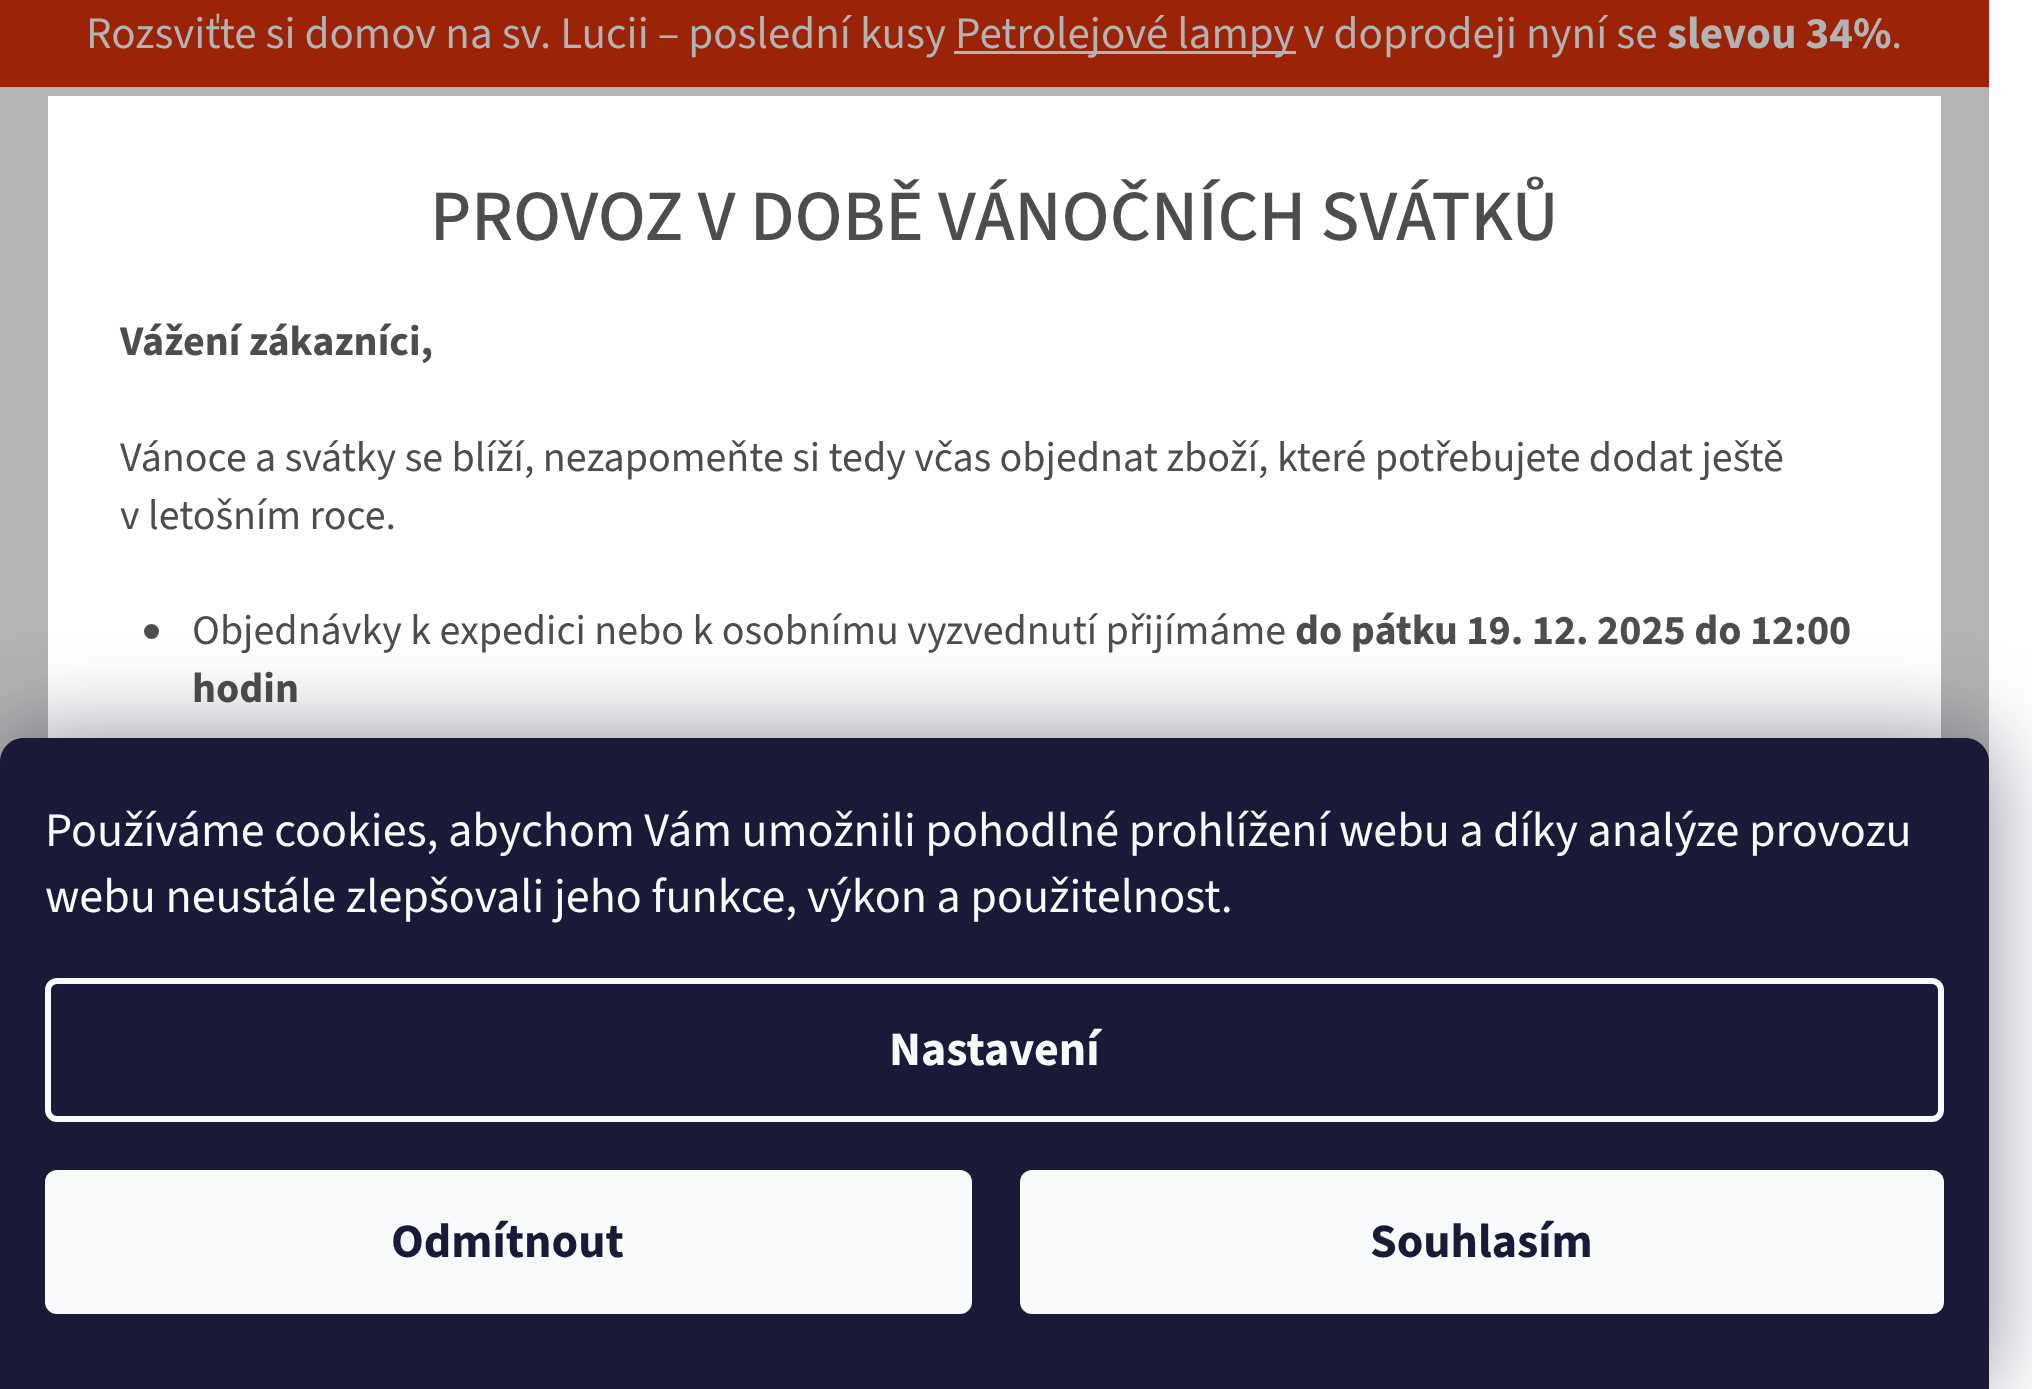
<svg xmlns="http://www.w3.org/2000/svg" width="2032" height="1389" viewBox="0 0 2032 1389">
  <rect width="100%" height="100%" fill="rgb(255,255,255)"/>
  <rect x="0" y="87" width="1989" height="675" fill="rgb(179,179,179)"/>
  <rect x="0" y="0" width="1989" height="87" fill="rgb(155,36,8)"/>
  <text x="86" y="48" font-family="'Source Sans 3'" font-size="45" fill="rgb(179,179,179)">Rozsviťte si domov na sv. Lucii – poslední kusy</text>
  <rect x="954" y="51" width="342" height="3" fill="rgb(179,179,179)"/>
  <text x="955" y="48" font-family="'Source Sans 3'" font-size="45" fill="rgb(179,179,179)">Petrolejové lampy v doprodeji nyní se</text>
  <text x="1667" y="48" font-family="'Source Sans 3'" font-size="45" font-weight="bold" fill="rgb(179,179,179)">slevou 34%</text>
  <text x="1891" y="48" font-family="'Source Sans 3'" font-size="45" fill="rgb(179,179,179)">.</text>
  <rect x="48" y="96" width="1893" height="642" fill="rgb(255,255,255)"/>
  <text x="430" y="240" font-family="'Source Sans 3'" font-size="72" font-weight="500" fill="rgb(77,77,77)">PROVOZ V DOBĚ VÁNOČNÍCH SVÁTKŮ</text>
  <text x="120" y="355" font-family="'Source Sans 3'" font-size="42" font-weight="bold" fill="rgb(77,77,77)">Vážení zákazníci,</text>
  <g font-family="'Source Sans 3'" font-size="42" fill="rgb(77,77,77)">
    <text>
      <tspan x="120" y="471">Vánoce a svátky se blíží, nezapomeňte si tedy včas objednat zboží, které potřebujete dodat ještě</tspan>
      <tspan x="120" y="529">v letošním roce.</tspan>
    </text>
  </g>
  <circle cx="151.5" cy="631.5" r="7.5" fill="rgb(77,77,77)"/>
  <text x="192" y="644" font-family="'Source Sans 3'" font-size="42" fill="rgb(77,77,77)">Objednávky k expedici nebo k osobnímu vyzvednutí přijímáme</text>
  <g font-family="'Source Sans 3'" font-size="42" font-weight="bold" fill="rgb(77,77,77)">
    <text x="1295" y="644">do pátku 19. 12. 2025 do 12:00</text>
    <text x="192" y="702">hodin</text>
  </g>
  <rect x="0" y="738" width="1989" height="651" rx="24" fill="rgba(27,25,57,0.5)" filter="blur(45px)"/>
  <path d="M24 738H1965C1978.5 738 1989 748.5 1989 762V1389H0V762C0 748.5 10.5 738 24 738Z" fill="rgb(26,25,55)"/>
  <g font-family="'Source Sans 3'" font-size="48" fill="rgb(248,250,251)">
    <text>
      <tspan x="45" y="846">Používáme cookies, abychom Vám umožnili pohodlné prohlížení webu a díky analýze provozu</tspan>
      <tspan x="45" y="912">webu neustále zlepšovali jeho funkce, výkon a použitelnost.</tspan>
    </text>
  </g>
  <rect x="48" y="981" width="1893" height="138" rx="9" fill="none" stroke="rgb(248,250,251)" stroke-width="6"/>
  <text x="889" y="1065" font-family="'Source Sans 3'" font-size="48" font-weight="bold" fill="rgb(248,250,251)">Nastavení</text>
  <rect x="45" y="1170" width="927" height="144" rx="12" fill="rgb(248,250,251)"/>
  <text x="391" y="1257" font-family="'Source Sans 3'" font-size="48" font-weight="bold" fill="rgb(26,25,55)">Odmítnout</text>
  <rect x="1020" y="1170" width="924" height="144" rx="12" fill="rgb(248,250,251)"/>
  <text x="1370" y="1257" font-family="'Source Sans 3'" font-size="48" font-weight="bold" fill="rgb(26,25,55)">Souhlasím</text>
</svg>
